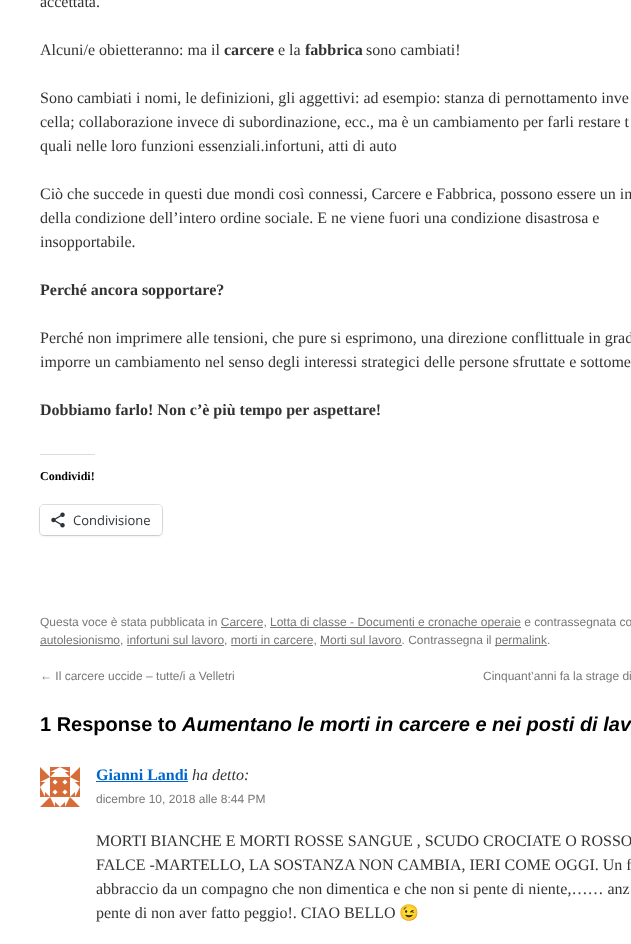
<svg xmlns="http://www.w3.org/2000/svg" width="631" height="944" viewBox="0 0 631 944">
  <rect width="100%" height="100%" fill="rgb(255,255,255)"/>
  <g font-family="Liberation Serif" font-size="16" fill="rgb(51,51,51)">
    <text x="40" y="7">accettata.</text>
    <text x="40" y="55">Alcuni/e obietteranno: ma il</text>
  </g>
  <text x="224" y="55" font-family="Liberation Serif" font-size="16" font-weight="bold" fill="rgb(51,51,51)">carcere</text>
  <text x="278" y="55" font-family="Liberation Serif" font-size="16" fill="rgb(51,51,51)">e la</text>
  <text x="305" y="55" font-family="Liberation Serif" font-size="16" font-weight="bold" fill="rgb(51,51,51)">fabbrica</text>
  <g font-family="Liberation Serif" font-size="16" fill="rgb(51,51,51)">
    <text x="366" y="55">sono cambiati!</text>
    <text>
      <tspan x="40" y="103">Sono cambiati i nomi, le definizioni, gli aggettivi: ad esempio: stanza di pernottamento inve</tspan>
      <tspan x="40" y="127">cella; collaborazione invece di subordinazione, ecc., ma è un cambiamento per farli restare t</tspan>
      <tspan x="40" y="151">quali nelle loro funzioni essenziali.infortuni, atti di auto</tspan>
    </text>
    <text>
      <tspan x="40" y="199">Ciò che succede in questi due mondi così connessi, Carcere e Fabbrica, possono essere un in</tspan>
      <tspan x="40" y="223">della condizione dell’intero ordine sociale. E ne viene fuori una condizione disastrosa e</tspan>
      <tspan x="40" y="247">insopportabile.</tspan>
    </text>
  </g>
  <text x="40" y="295" font-family="Liberation Serif" font-size="16" font-weight="bold" fill="rgb(51,51,51)">Perché ancora sopportare?</text>
  <g font-family="Liberation Serif" font-size="16" fill="rgb(51,51,51)">
    <text>
      <tspan x="40" y="343">Perché non imprimere alle tensioni, che pure si esprimono, una direzione conflittuale in grad</tspan>
      <tspan x="40" y="367">imporre un cambiamento nel senso degli interessi strategici delle persone sfruttate e sottome</tspan>
    </text>
  </g>
  <text x="40" y="415" font-family="Liberation Serif" font-size="16" font-weight="bold" fill="rgb(51,51,51)">Dobbiamo farlo! Non c’è più tempo per aspettare!</text>
  <rect x="40" y="454" width="55" height="1" fill="rgb(220,220,222)"/>
  <text x="40" y="480" font-family="Liberation Serif" font-size="12" font-weight="bold" fill="rgb(0,0,0)">Condividi!</text>
  <rect x="39.5" y="504.5" width="123" height="31" rx="4.5" fill="none" stroke="rgb(224,224,224)"/>
  <rect x="40" y="506" width="122" height="30" rx="4" fill="rgba(0,0,0,0.12)" filter="blur(1px)"/>
  <rect x="40" y="505" width="122" height="30" rx="4" fill="rgb(255,255,255)"/>
  <image x="51" y="512" width="14" height="16" href="pic1.png"/>
  <text x="73" y="525" font-family="Open Sans" font-size="13" fill="rgb(44,51,56)">Condivisione</text>
  <text x="40" y="626" font-family="Liberation Sans" font-size="12" fill="rgb(119,119,119)">Questa voce è stata pubblicata in Carcere,</text>
  <rect x="270" y="627" width="251" height="1" fill="rgb(119,119,119)"/>
  <text x="270" y="626" font-family="Liberation Sans" font-size="12" fill="rgb(119,119,119)">Lotta di classe - Documenti e cronache operaie e contrassegnata co</text>
  <rect x="221" y="627" width="42" height="1" fill="rgb(119,119,119)"/>
  <rect x="40" y="645" width="80" height="1" fill="rgb(119,119,119)"/>
  <text x="40" y="644" font-family="Liberation Sans" font-size="12" fill="rgb(119,119,119)">autolesionismo, infortuni sul lavoro, morti in carcere, Morti sul lavoro. Contrassegna il</text>
  <rect x="495" y="645" width="52" height="1" fill="rgb(119,119,119)"/>
  <text x="495" y="644" font-family="Liberation Sans" font-size="12" fill="rgb(119,119,119)">permalink.</text>
  <rect x="127" y="645" width="97" height="1" fill="rgb(119,119,119)"/>
  <rect x="231" y="645" width="82" height="1" fill="rgb(119,119,119)"/>
  <rect x="320" y="645" width="82" height="1" fill="rgb(119,119,119)"/>
  <g font-family="Liberation Sans" font-size="12" fill="rgb(119,119,119)">
    <text x="40" y="680">← Il carcere uccide – tutte/i a Velletri</text>
    <text x="483" y="680">Cinquant’anni fa la strage di</text>
  </g>
  <text x="40" y="731" font-family="Liberation Sans" font-size="20" font-weight="bold" fill="rgb(0,0,0)">1 Response to</text>
  <text x="182" y="731" font-family="Liberation Sans" font-size="20" font-weight="bold" font-style="italic" fill="rgb(0,0,0)">Aumentano le morti in carcere e nei posti di lav</text>
  <image x="40" y="767" width="40" height="40" href="pic2.png"/>
  <text x="96" y="780" font-family="Liberation Serif" font-size="16" font-weight="bold" fill="rgb(0,102,204)">Gianni Landi</text>
  <rect x="96" y="781" width="92" height="1" fill="rgb(0,102,204)"/>
  <text x="192" y="780" font-family="Liberation Serif" font-size="16" font-style="italic" fill="rgb(51,51,51)">ha detto:</text>
  <text x="96" y="803" font-family="Liberation Sans" font-size="12" fill="rgb(119,119,119)">dicembre 10, 2018 alle 8:44 PM</text>
  <g font-family="Liberation Serif" font-size="16" fill="rgb(51,51,51)">
    <text>
      <tspan x="96" y="846">MORTI BIANCHE E MORTI ROSSE SANGUE , SCUDO CROCIATE O ROSSO</tspan>
      <tspan x="96" y="870">FALCE -MARTELLO, LA SOSTANZA NON CAMBIA, IERI COME OGGI. Un f</tspan>
      <tspan x="96" y="894">abbraccio da un compagno che non dimentica e che non si pente di niente,…… anz</tspan>
      <tspan x="96" y="918">pente di non aver fatto peggio!. CIAO BELLO</tspan>
    </text>
  </g>
  <text x="399" y="918" font-family="Noto Color Emoji" font-size="16" fill="rgb(51,51,51)">😉</text>
</svg>
